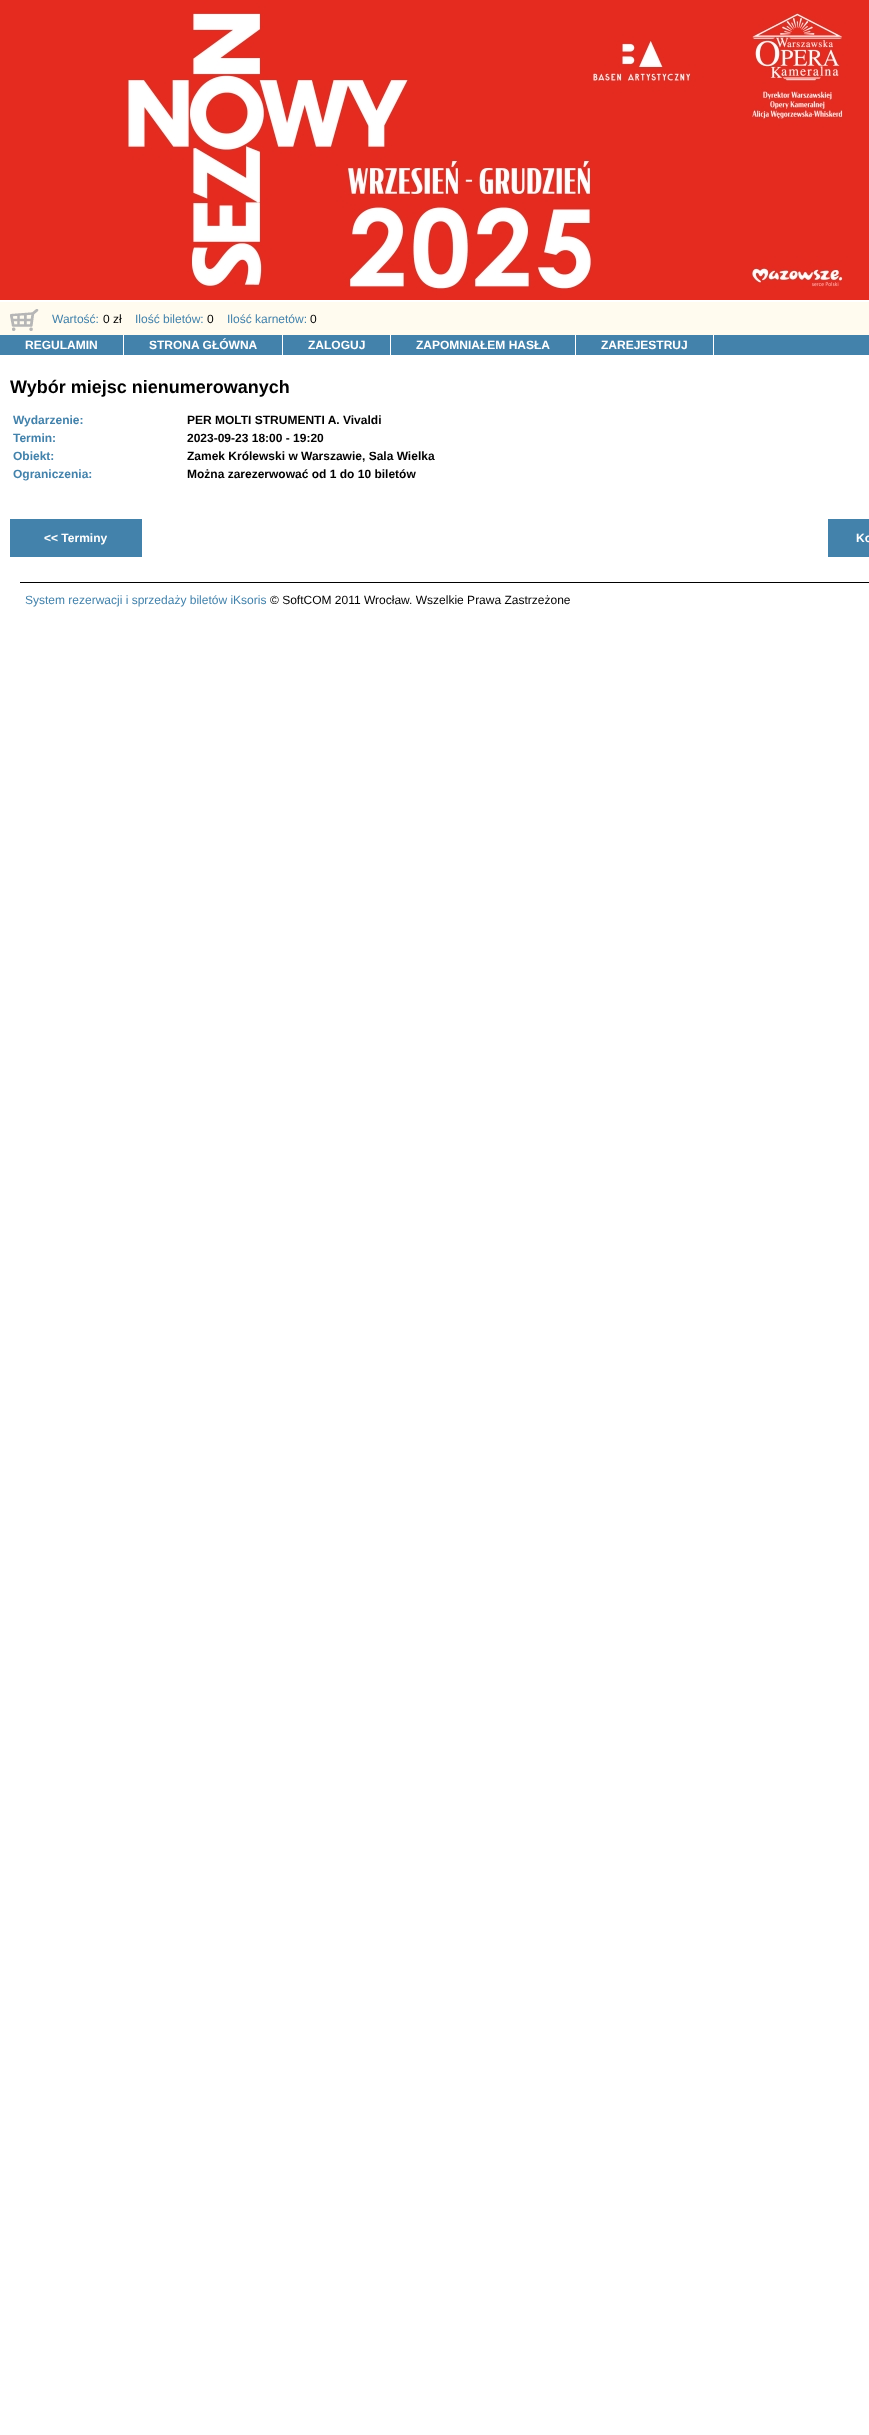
<svg xmlns="http://www.w3.org/2000/svg" width="869" height="2435" viewBox="0 0 869 2435">
  <rect width="100%" height="100%" fill="rgb(255,255,255)"/>
  <image x="0" y="0" width="869" height="300" href="pic1.png"/>
  <rect x="0" y="302" width="869" height="33" fill="rgb(255,251,239)"/>
  <image x="10" y="309" width="29" height="22" href="pic2.png"/>
  <text x="52" y="323" font-family="Liberation Sans" font-size="12" fill="rgb(67,130,171)">Wartość:</text>
  <text x="103" y="323" font-family="Liberation Sans" font-size="12" fill="rgb(0,0,0)">0 zł</text>
  <text x="135" y="323" font-family="Liberation Sans" font-size="12" fill="rgb(67,130,171)">Ilość biletów:</text>
  <text x="207" y="323" font-family="Liberation Sans" font-size="12" fill="rgb(0,0,0)">0</text>
  <text x="227" y="323" font-family="Liberation Sans" font-size="12" fill="rgb(67,130,171)">Ilość karnetów:</text>
  <text x="310" y="323" font-family="Liberation Sans" font-size="12" fill="rgb(0,0,0)">0</text>
  <rect x="0" y="335" width="869" height="20" fill="rgb(67,130,171)"/>
  <rect x="123" y="335" width="1" height="20" fill="rgb(255,255,255)"/>
  <text x="25" y="349" font-family="Liberation Sans" font-size="12" font-weight="bold" fill="rgb(255,255,255)">REGULAMIN</text>
  <rect x="282" y="335" width="1" height="20" fill="rgb(255,255,255)"/>
  <text x="149" y="349" font-family="Liberation Sans" font-size="12" font-weight="bold" fill="rgb(255,255,255)">STRONA GŁÓWNA</text>
  <rect x="390" y="335" width="1" height="20" fill="rgb(255,255,255)"/>
  <text x="308" y="349" font-family="Liberation Sans" font-size="12" font-weight="bold" fill="rgb(255,255,255)">ZALOGUJ</text>
  <rect x="575" y="335" width="1" height="20" fill="rgb(255,255,255)"/>
  <text x="416" y="349" font-family="Liberation Sans" font-size="12" font-weight="bold" fill="rgb(255,255,255)">ZAPOMNIAŁEM HASŁA</text>
  <rect x="713" y="335" width="1" height="20" fill="rgb(255,255,255)"/>
  <text x="601" y="349" font-family="Liberation Sans" font-size="12" font-weight="bold" fill="rgb(255,255,255)">ZAREJESTRUJ</text>
  <text x="10" y="393" font-family="Liberation Sans" font-size="18" font-weight="bold" fill="rgb(0,0,0)">Wybór miejsc nienumerowanych</text>
  <text x="13" y="424" font-family="Liberation Sans" font-size="12" font-weight="bold" fill="rgb(67,130,171)">Wydarzenie:</text>
  <text x="187" y="424" font-family="Liberation Sans" font-size="12" font-weight="bold" fill="rgb(0,0,0)">PER MOLTI STRUMENTI A. Vivaldi</text>
  <text x="13" y="442" font-family="Liberation Sans" font-size="12" font-weight="bold" fill="rgb(67,130,171)">Termin:</text>
  <text x="187" y="442" font-family="Liberation Sans" font-size="12" font-weight="bold" fill="rgb(0,0,0)">2023-09-23 18:00 - 19:20</text>
  <text x="13" y="460" font-family="Liberation Sans" font-size="12" font-weight="bold" fill="rgb(67,130,171)">Obiekt:</text>
  <text x="187" y="460" font-family="Liberation Sans" font-size="12" font-weight="bold" fill="rgb(0,0,0)">Zamek Królewski w Warszawie, Sala Wielka</text>
  <text x="13" y="478" font-family="Liberation Sans" font-size="12" font-weight="bold" fill="rgb(67,130,171)">Ograniczenia:</text>
  <text x="187" y="478" font-family="Liberation Sans" font-size="12" font-weight="bold" fill="rgb(0,0,0)">Można zarezerwować od 1 do 10 biletów</text>
  <rect x="10" y="519" width="132" height="38" fill="rgb(67,130,171)"/>
  <text x="44" y="542" font-family="Liberation Sans" font-size="12" font-weight="bold" fill="rgb(255,255,255)">&lt;&lt; Terminy</text>
  <rect x="828" y="519" width="41" height="38" fill="rgb(67,130,171)"/>
  <text x="856" y="542" font-family="Liberation Sans" font-size="12" font-weight="bold" fill="rgb(255,255,255)">Ko</text>
  <rect x="20" y="582" width="849" height="1" fill="rgb(0,0,0)"/>
  <text x="25" y="604" font-family="Liberation Sans" font-size="12" fill="rgb(67,130,171)">System rezerwacji i sprzedaży biletów iKsoris</text>
  <text x="270" y="604" font-family="Liberation Sans" font-size="12" fill="rgb(0,0,0)">© SoftCOM 2011 Wrocław. Wszelkie Prawa Zastrzeżone</text>
</svg>
